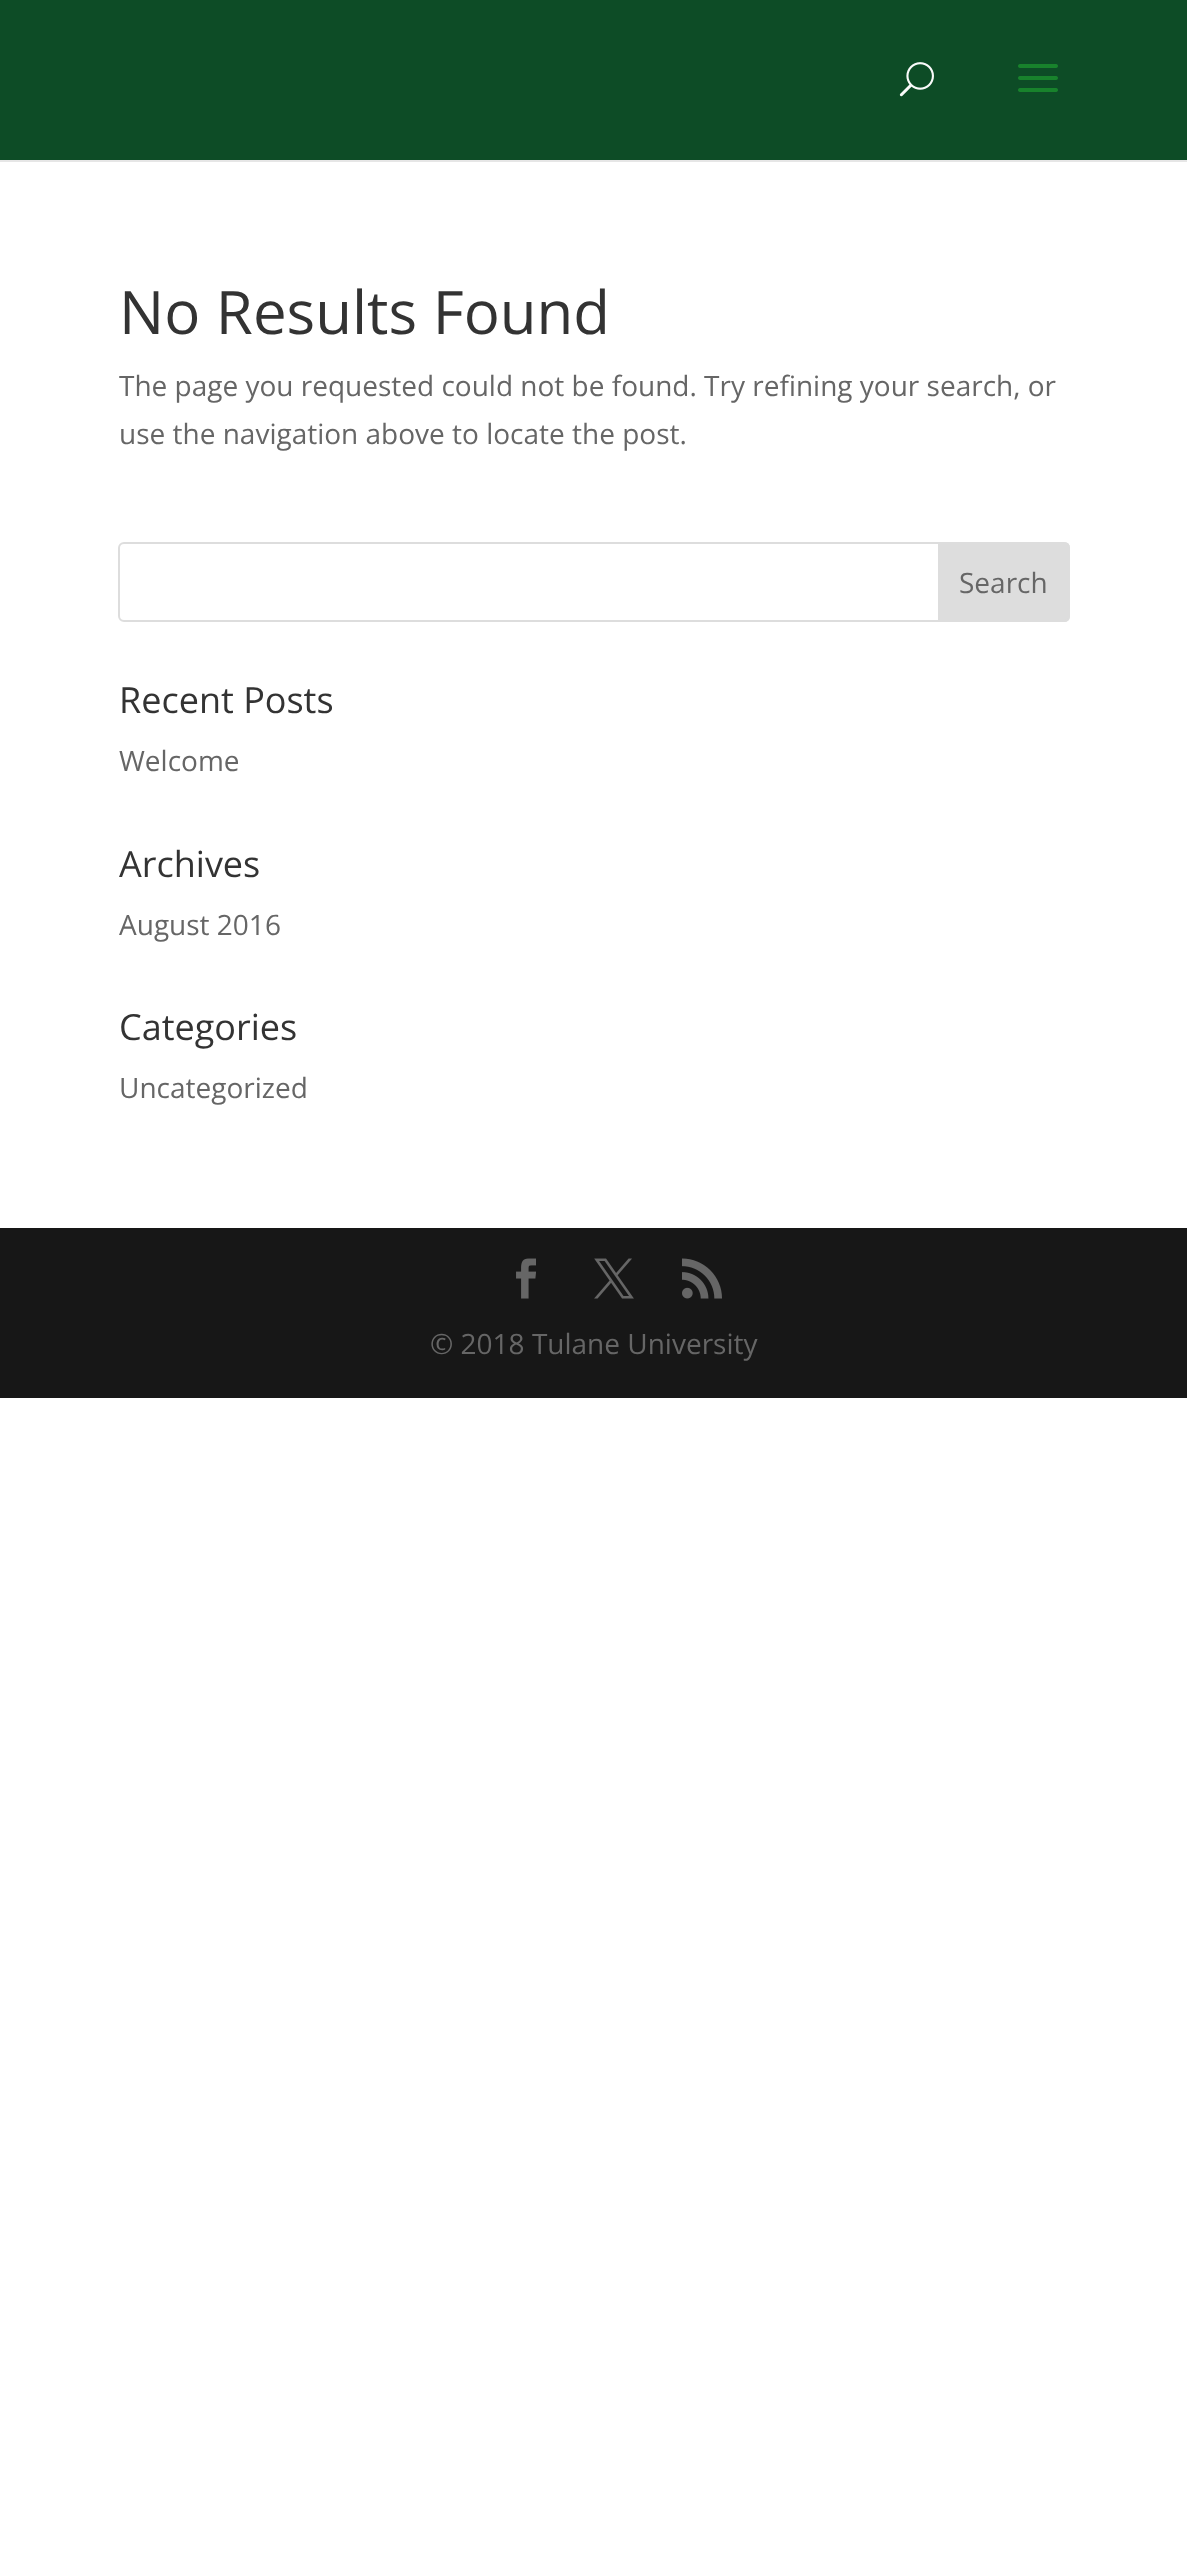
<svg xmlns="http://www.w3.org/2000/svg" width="1187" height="2575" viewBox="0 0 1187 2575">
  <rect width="100%" height="100%" fill="rgb(255,255,255)"/>
  <rect x="0" y="160" width="1187" height="2" fill="rgb(230,230,230)"/>
  <rect x="0" y="0" width="1187" height="160" fill="rgb(13,76,38)"/>
  <image x="899" y="62" width="35" height="35" href="pic1.png"/>
  <image x="1018" y="64" width="40" height="28" href="pic2.png"/>
  <text x="119" y="334" font-family="Open Sans" font-size="60" fill="rgb(51,51,51)">No Results Found</text>
  <g font-family="Open Sans" font-size="28" fill="rgb(102,102,102)">
    <text>
      <tspan x="119" y="396">The page you requested could not be found. Try refining your search, or</tspan>
      <tspan x="119" y="444">use the navigation above to locate the post.</tspan>
    </text>
  </g>
  <rect x="119" y="543" width="950" height="78" rx="5" fill="none" stroke="rgb(221,221,221)" stroke-width="2"/>
  <path d="M939 543H1064C1067 543 1069 545 1069 548V616C1069 619 1067 621 1064 621H939Z" fill="rgb(221,221,221)" stroke="rgb(221,221,221)" stroke-width="2"/>
  <text x="959" y="593" font-family="Open Sans" font-size="28" fill="rgb(102,102,102)">Search</text>
  <text x="119" y="713" font-family="Open Sans" font-size="36" fill="rgb(51,51,51)">Recent Posts</text>
  <text x="119" y="771" font-family="Open Sans" font-size="28" fill="rgb(102,102,102)">Welcome</text>
  <text x="119" y="877" font-family="Open Sans" font-size="36" fill="rgb(51,51,51)">Archives</text>
  <text x="119" y="935" font-family="Open Sans" font-size="28" fill="rgb(102,102,102)">August 2016</text>
  <text x="119" y="1040" font-family="Open Sans" font-size="36" fill="rgb(51,51,51)">Categories</text>
  <text x="119" y="1098" font-family="Open Sans" font-size="28" fill="rgb(102,102,102)">Uncategorized</text>
  <rect x="0" y="1228" width="1187" height="170" fill="rgb(23,23,23)"/>
  <image x="516" y="1258" width="20" height="41" href="pic3.png"/>
  <image x="594" y="1258" width="40" height="41" href="pic4.png"/>
  <image x="682" y="1258" width="40" height="41" href="pic5.png"/>
  <text x="430" y="1354" font-family="Open Sans" font-size="28" fill="rgb(102,102,102)">© 2018 Tulane University</text>
</svg>
